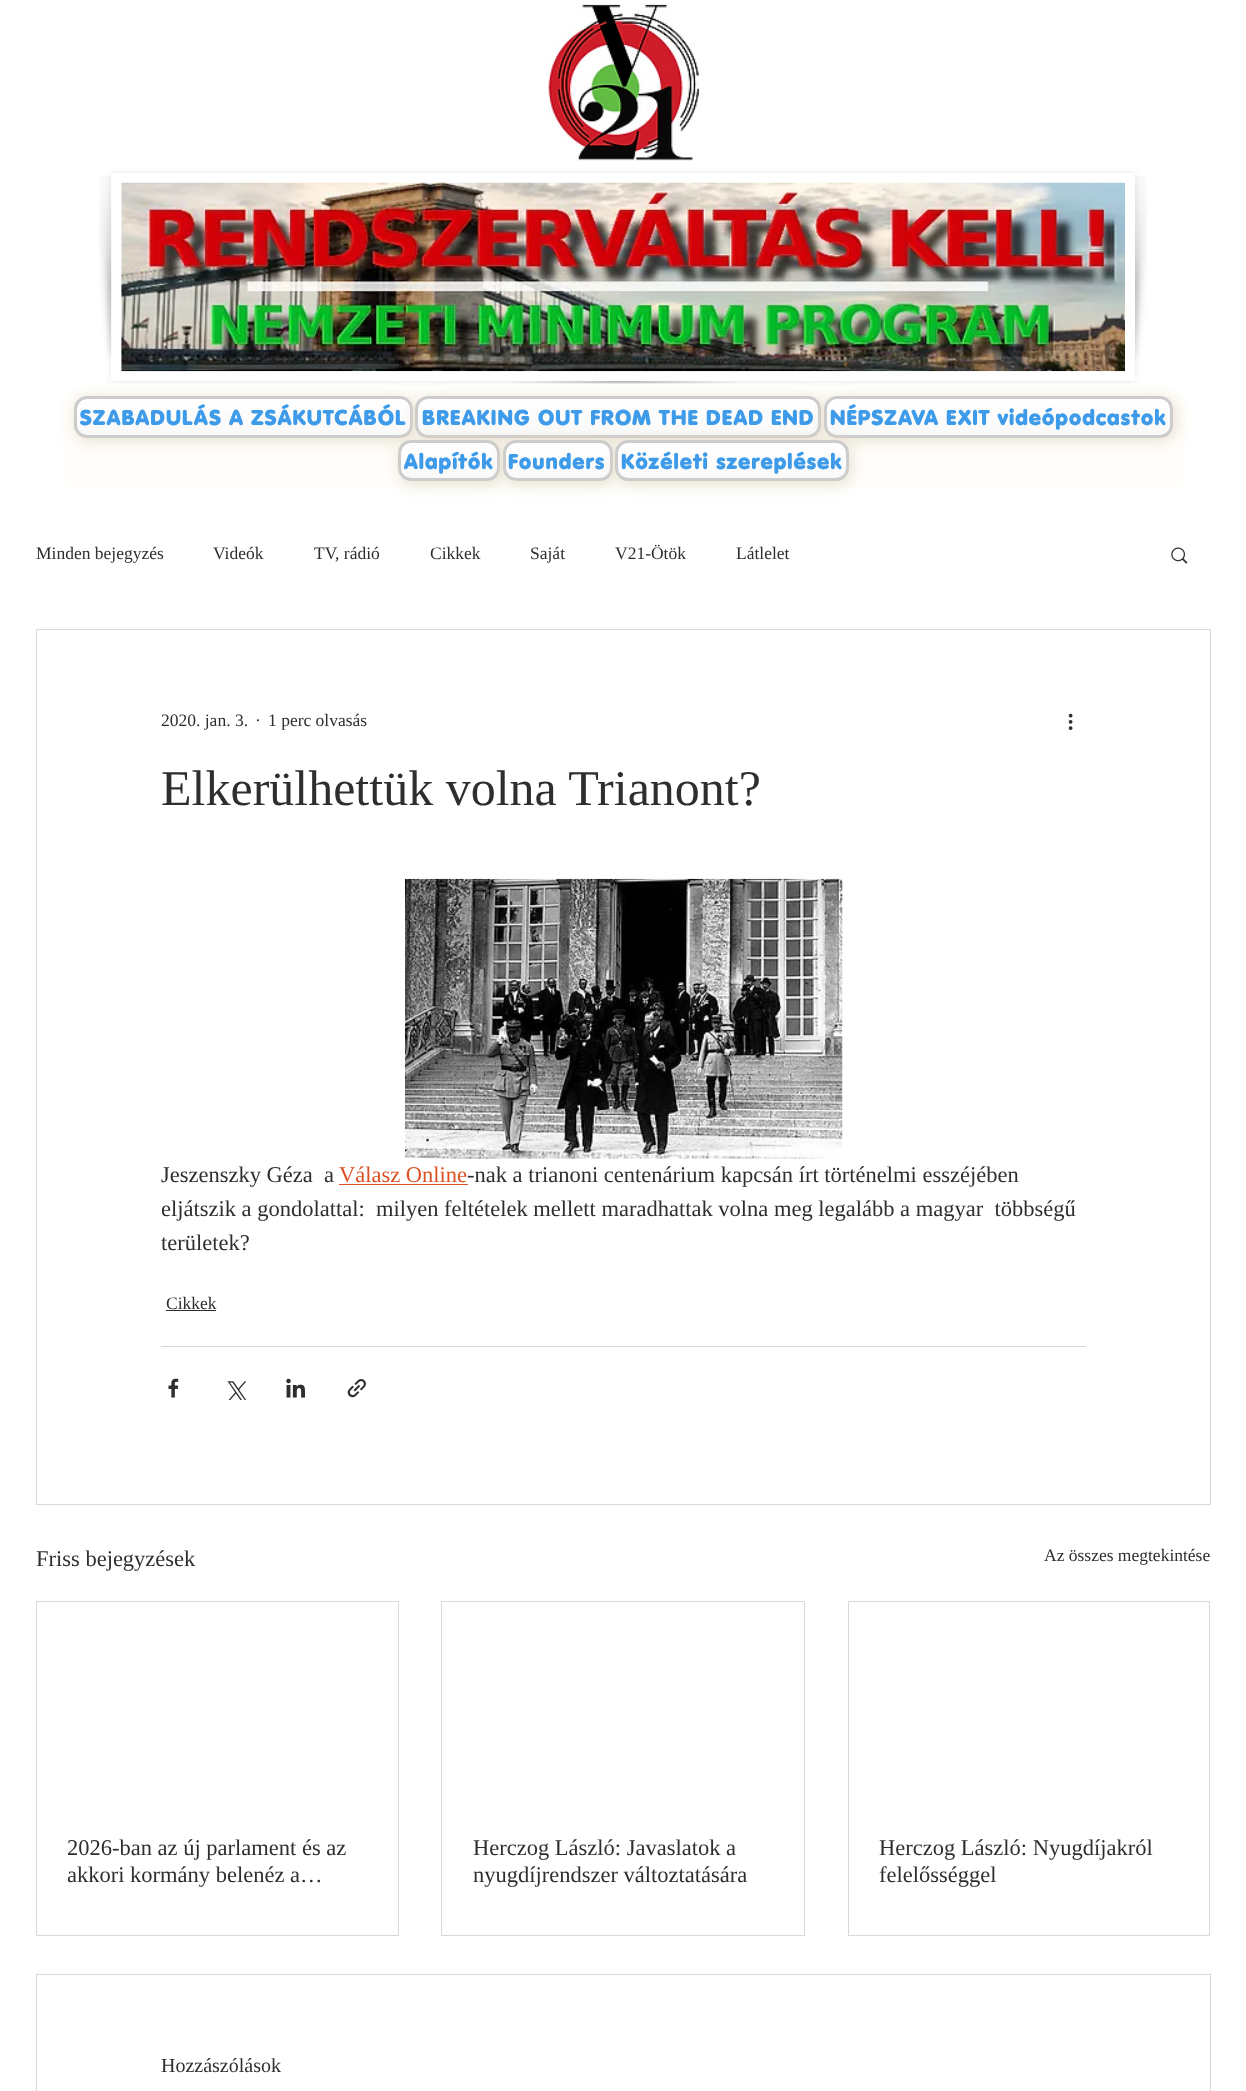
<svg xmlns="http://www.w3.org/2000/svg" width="1246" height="2091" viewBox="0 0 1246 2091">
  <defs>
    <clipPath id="clip1"><rect x="74" y="396" width="339" height="42" rx="13"/></clipPath>
    <linearGradient id="g1" gradientUnits="userSpaceOnUse" x1="243" y1="399" x2="243" y2="435"><stop offset="0" stop-color="rgb(193,165,143)"/><stop offset="0" stop-color="rgb(255,255,255)"/><stop offset="1" stop-color="rgb(249,249,249)"/></linearGradient>
    <clipPath id="clip2"><rect x="415" y="396" width="406" height="42" rx="13"/></clipPath>
    <linearGradient id="g2" gradientUnits="userSpaceOnUse" x1="618" y1="399" x2="618" y2="435"><stop offset="0" stop-color="rgb(193,165,143)"/><stop offset="0" stop-color="rgb(255,255,255)"/><stop offset="1" stop-color="rgb(249,249,249)"/></linearGradient>
    <clipPath id="clip3"><rect x="824" y="396" width="349" height="42" rx="13"/></clipPath>
    <linearGradient id="g3" gradientUnits="userSpaceOnUse" x1="998" y1="399" x2="998" y2="435"><stop offset="0" stop-color="rgb(193,165,143)"/><stop offset="0" stop-color="rgb(255,255,255)"/><stop offset="1" stop-color="rgb(249,249,249)"/></linearGradient>
    <clipPath id="clip4"><rect x="398" y="440" width="102" height="41" rx="13"/></clipPath>
    <linearGradient id="g4" gradientUnits="userSpaceOnUse" x1="449" y1="443" x2="449" y2="479"><stop offset="0" stop-color="rgb(193,165,143)"/><stop offset="0" stop-color="rgb(255,255,255)"/><stop offset="1" stop-color="rgb(249,249,249)"/></linearGradient>
    <clipPath id="clip5"><rect x="503" y="440" width="110" height="41" rx="13"/></clipPath>
    <linearGradient id="g5" gradientUnits="userSpaceOnUse" x1="558" y1="443" x2="558" y2="479"><stop offset="0" stop-color="rgb(193,165,143)"/><stop offset="0" stop-color="rgb(255,255,255)"/><stop offset="1" stop-color="rgb(249,249,249)"/></linearGradient>
    <clipPath id="clip6"><rect x="615" y="440" width="234" height="41" rx="13"/></clipPath>
    <linearGradient id="g6" gradientUnits="userSpaceOnUse" x1="732" y1="443" x2="732" y2="479"><stop offset="0" stop-color="rgb(193,165,143)"/><stop offset="0" stop-color="rgb(255,255,255)"/><stop offset="1" stop-color="rgb(249,249,249)"/></linearGradient>
    <clipPath id="clip7"><rect x="68" y="1835" width="300" height="53"/></clipPath>
  </defs>
  <rect width="100%" height="100%" fill="rgb(255,255,255)"/>
  <image x="548" y="4" width="151" height="157" href="pic1.png"/>
  <rect x="111" y="173" width="1024" height="208" fill="rgba(0,0,0,0.1)" filter="blur(3px)"/>
  <rect x="111" y="173" width="1024" height="208" fill="rgb(255,255,255)"/>
  <image x="121" y="182" width="1004" height="190" href="pic2.png"/>
  <image x="511" y="381" width="225" height="3" href="pic3.png"/>
  <image x="99" y="176" width="13" height="183" href="pic4.png"/>
  <image x="1135" y="176" width="12" height="183" href="pic5.png"/>
  <rect x="61" y="390" width="1125" height="98" rx="13" fill="rgb(255,254,251)"/>
  <rect x="76" y="399" width="339" height="41" rx="13" fill="rgb(230,222,202)" filter="blur(8px)"/>
  <g clip-path="url(#clip1)">
    <rect x="74" y="399" width="339" height="36" fill="url(#g1)"/>
  </g>
  <rect x="75.5" y="397.5" width="336" height="39" rx="11.5" fill="none" stroke="rgb(204,204,204)" stroke-width="3"/>
  <text x="80" y="425" font-family="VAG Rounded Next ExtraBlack" font-size="21.25" font-weight="800" letter-spacing="1.05" fill="rgb(61,155,233)">SZABADULÁS A ZSÁKUTCÁBÓL</text>
  <rect x="418" y="399" width="406" height="41" rx="13" fill="rgb(230,222,202)" filter="blur(8px)"/>
  <g clip-path="url(#clip2)">
    <rect x="415" y="399" width="406" height="36" fill="url(#g2)"/>
  </g>
  <rect x="416.5" y="397.5" width="403" height="39" rx="11.5" fill="none" stroke="rgb(204,204,204)" stroke-width="3"/>
  <text x="422" y="425" font-family="VAG Rounded Next ExtraBlack" font-size="21.25" font-weight="800" letter-spacing="1.05" fill="rgb(61,155,233)">BREAKING OUT FROM THE DEAD END</text>
  <rect x="826" y="399" width="349" height="41" rx="13" fill="rgb(230,222,202)" filter="blur(8px)"/>
  <g clip-path="url(#clip3)">
    <rect x="824" y="399" width="349" height="36" fill="url(#g3)"/>
  </g>
  <rect x="825.5" y="397.5" width="346" height="39" rx="11.5" fill="none" stroke="rgb(204,204,204)" stroke-width="3"/>
  <text x="830" y="425" font-family="VAG Rounded Next ExtraBlack" font-size="21.25" font-weight="800" letter-spacing="1.05" fill="rgb(61,155,233)">NÉPSZAVA EXIT videópodcastok</text>
  <rect x="400" y="443" width="103" height="41" rx="13" fill="rgb(230,222,202)" filter="blur(8px)"/>
  <g clip-path="url(#clip4)">
    <rect x="398" y="443" width="102" height="36" fill="url(#g4)"/>
  </g>
  <rect x="399.5" y="441.5" width="99" height="38" rx="11.5" fill="none" stroke="rgb(204,204,204)" stroke-width="3"/>
  <text x="404" y="469" font-family="VAG Rounded Next ExtraBlack" font-size="21.25" font-weight="800" letter-spacing="1.05" fill="rgb(61,155,233)">Alapítók</text>
  <rect x="505" y="443" width="110" height="41" rx="13" fill="rgb(230,222,202)" filter="blur(8px)"/>
  <g clip-path="url(#clip5)">
    <rect x="503" y="443" width="110" height="36" fill="url(#g5)"/>
  </g>
  <rect x="504.5" y="441.5" width="107" height="38" rx="11.5" fill="none" stroke="rgb(204,204,204)" stroke-width="3"/>
  <text x="508" y="469" font-family="VAG Rounded Next ExtraBlack" font-size="21.25" font-weight="800" letter-spacing="1.05" fill="rgb(61,155,233)">Founders</text>
  <rect x="618" y="443" width="233" height="41" rx="13" fill="rgb(230,222,202)" filter="blur(8px)"/>
  <g clip-path="url(#clip6)">
    <rect x="615" y="443" width="234" height="36" fill="url(#g6)"/>
  </g>
  <rect x="616.5" y="441.5" width="231" height="38" rx="11.5" fill="none" stroke="rgb(204,204,204)" stroke-width="3"/>
  <text x="621" y="469" font-family="VAG Rounded Next ExtraBlack" font-size="21.25" font-weight="800" letter-spacing="1.05" fill="rgb(61,155,233)">Közéleti szereplések</text>
  <g font-family="Liberation Serif" font-size="17.5" fill="rgb(47,46,46)">
    <text x="36" y="559">Minden bejegyzés</text>
    <text x="213" y="559">Videók</text>
    <text x="314" y="559">TV, rádió</text>
    <text x="430" y="559">Cikkek</text>
    <text x="530" y="559">Saját</text>
    <text x="615" y="559">V21-Ötök</text>
    <text x="736" y="559">Látlelet</text>
  </g>
  <image x="1171" y="547" width="17" height="17" href="pic6.png"/>
  <rect x="36.5" y="629.5" width="1174" height="875" fill="none" stroke="rgb(217,217,217)"/>
  <g font-family="Liberation Serif" font-size="17.5" fill="rgb(47,46,46)">
    <text x="161" y="726">2020. jan. 3.</text>
    <text x="255" y="726">·</text>
    <text x="268" y="726">1 perc olvasás</text>
  </g>
  <image x="1068" y="713" width="5" height="17" href="pic7.png"/>
  <text x="161" y="805" font-family="Liberation Serif" font-size="50" fill="rgb(47,46,46)">Elkerülhettük volna Trianont?</text>
  <image x="405" y="878" width="438" height="281" href="pic8.png"/>
  <text x="161" y="1182" font-family="Liberation Serif" font-size="22.5" fill="rgb(47,46,46)" xml:space="preserve">Jeszenszky Géza  a</text>
  <text x="339" y="1182" font-family="Liberation Serif" font-size="22.5" fill="rgb(222,80,33)">Válasz Online</text>
  <rect x="339" y="1184" width="129" height="1" fill="rgb(222,80,33)"/>
  <g font-family="Liberation Serif" font-size="22.5" fill="rgb(47,46,46)">
    <text x="467" y="1182">-nak a trianoni centenárium kapcsán írt történelmi esszéjében</text>
    <text xml:space="preserve"><tspan x="161" y="1216">eljátszik a gondolattal:  milyen feltételek mellett maradhattak volna meg legalább a magyar  többségű</tspan><tspan x="161" y="1250">területek?</tspan></text>
  </g>
  <text x="166" y="1309" font-family="Liberation Serif" font-size="17.5" fill="rgb(47,46,46)">Cikkek</text>
  <rect x="166" y="1310" width="50" height="1" fill="rgb(47,46,46)"/>
  <rect x="161" y="1346" width="925" height="1" fill="rgb(213,213,213)"/>
  <image x="168" y="1378" width="11" height="20" href="pic9.png"/>
  <image x="227" y="1381" width="19" height="19" href="pic10.png"/>
  <image x="286" y="1378" width="19" height="20" href="pic11.png"/>
  <image x="347" y="1379" width="19" height="19" href="pic12.png"/>
  <text x="36" y="1566" font-family="Liberation Serif" font-size="22.5" fill="rgb(47,46,46)">Friss bejegyzések</text>
  <text x="1044" y="1561" font-family="Liberation Serif" font-size="17.5" fill="rgb(47,46,46)">Az összes megtekintése</text>
  <rect x="36.5" y="1601.5" width="362" height="334" fill="none" stroke="rgb(217,217,217)"/>
  <text x="67" y="1855" font-family="Liberation Serif" font-size="22.5" fill="rgb(47,46,46)">2026-ban az új parlament és az</text>
  <g clip-path="url(#clip7)">
    <text x="67" y="1882" font-family="Liberation Serif" font-size="22.5" fill="rgb(47,46,46)">akkori kormány belenéz a…</text>
  </g>
  <rect x="441.5" y="1601.5" width="363" height="334" fill="none" stroke="rgb(217,217,217)"/>
  <g font-family="Liberation Serif" font-size="22.5" fill="rgb(47,46,46)">
    <text>
      <tspan x="473" y="1855">Herczog László: Javaslatok a</tspan>
      <tspan x="473" y="1882">nyugdíjrendszer változtatására</tspan>
    </text>
  </g>
  <rect x="848.5" y="1601.5" width="361" height="334" fill="none" stroke="rgb(217,217,217)"/>
  <g font-family="Liberation Serif" font-size="22.5" fill="rgb(47,46,46)">
    <text>
      <tspan x="879" y="1855">Herczog László: Nyugdíjakról</tspan>
      <tspan x="879" y="1882">felelősséggel</tspan>
    </text>
  </g>
  <rect x="36.5" y="1974.5" width="1174" height="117" fill="none" stroke="rgb(217,217,217)"/>
  <text x="161" y="2072" font-family="Liberation Serif" font-size="20" fill="rgb(47,46,46)">Hozzászólások</text>
</svg>
